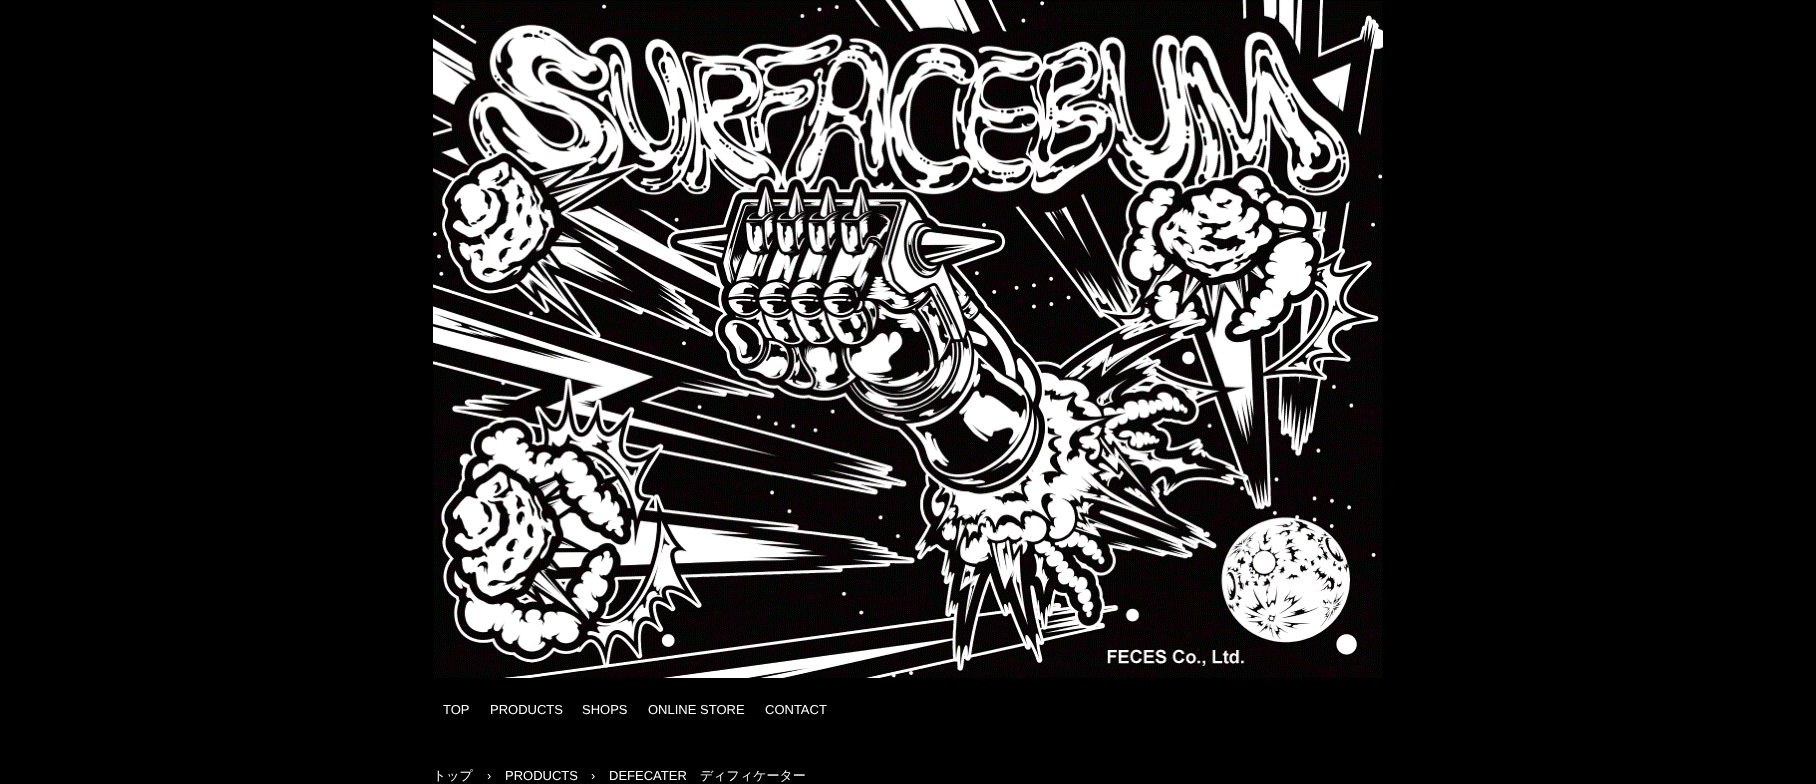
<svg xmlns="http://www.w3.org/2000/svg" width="1816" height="784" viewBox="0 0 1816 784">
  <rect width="100%" height="100%" fill="rgb(0,0,0)"/>
  <image x="433" y="0" width="950" height="678" href="pic1.png"/>
  <g font-family="Liberation Sans" font-size="13" fill="rgb(255,255,255)">
    <text x="443" y="714">TOP</text>
    <text x="490" y="714">PRODUCTS</text>
    <text x="582" y="714">SHOPS</text>
    <text x="648" y="714">ONLINE STORE</text>
    <text x="765" y="714">CONTACT</text>
  </g>
  <text x="433" y="780" font-family="WenQuanYi Zen Hei" font-size="13" font-weight="500" fill="rgb(255,255,255)">トップ</text>
  <g font-family="Liberation Sans" font-size="13" fill="rgb(255,255,255)">
    <text x="487" y="780">›</text>
    <text x="505" y="780">PRODUCTS</text>
    <text x="591" y="780">›</text>
    <text x="609" y="780">DEFECATER</text>
  </g>
  <text x="700" y="780" font-family="WenQuanYi Zen Hei" font-size="13" font-weight="500" fill="rgb(255,255,255)">ディフィケーター</text>
</svg>
